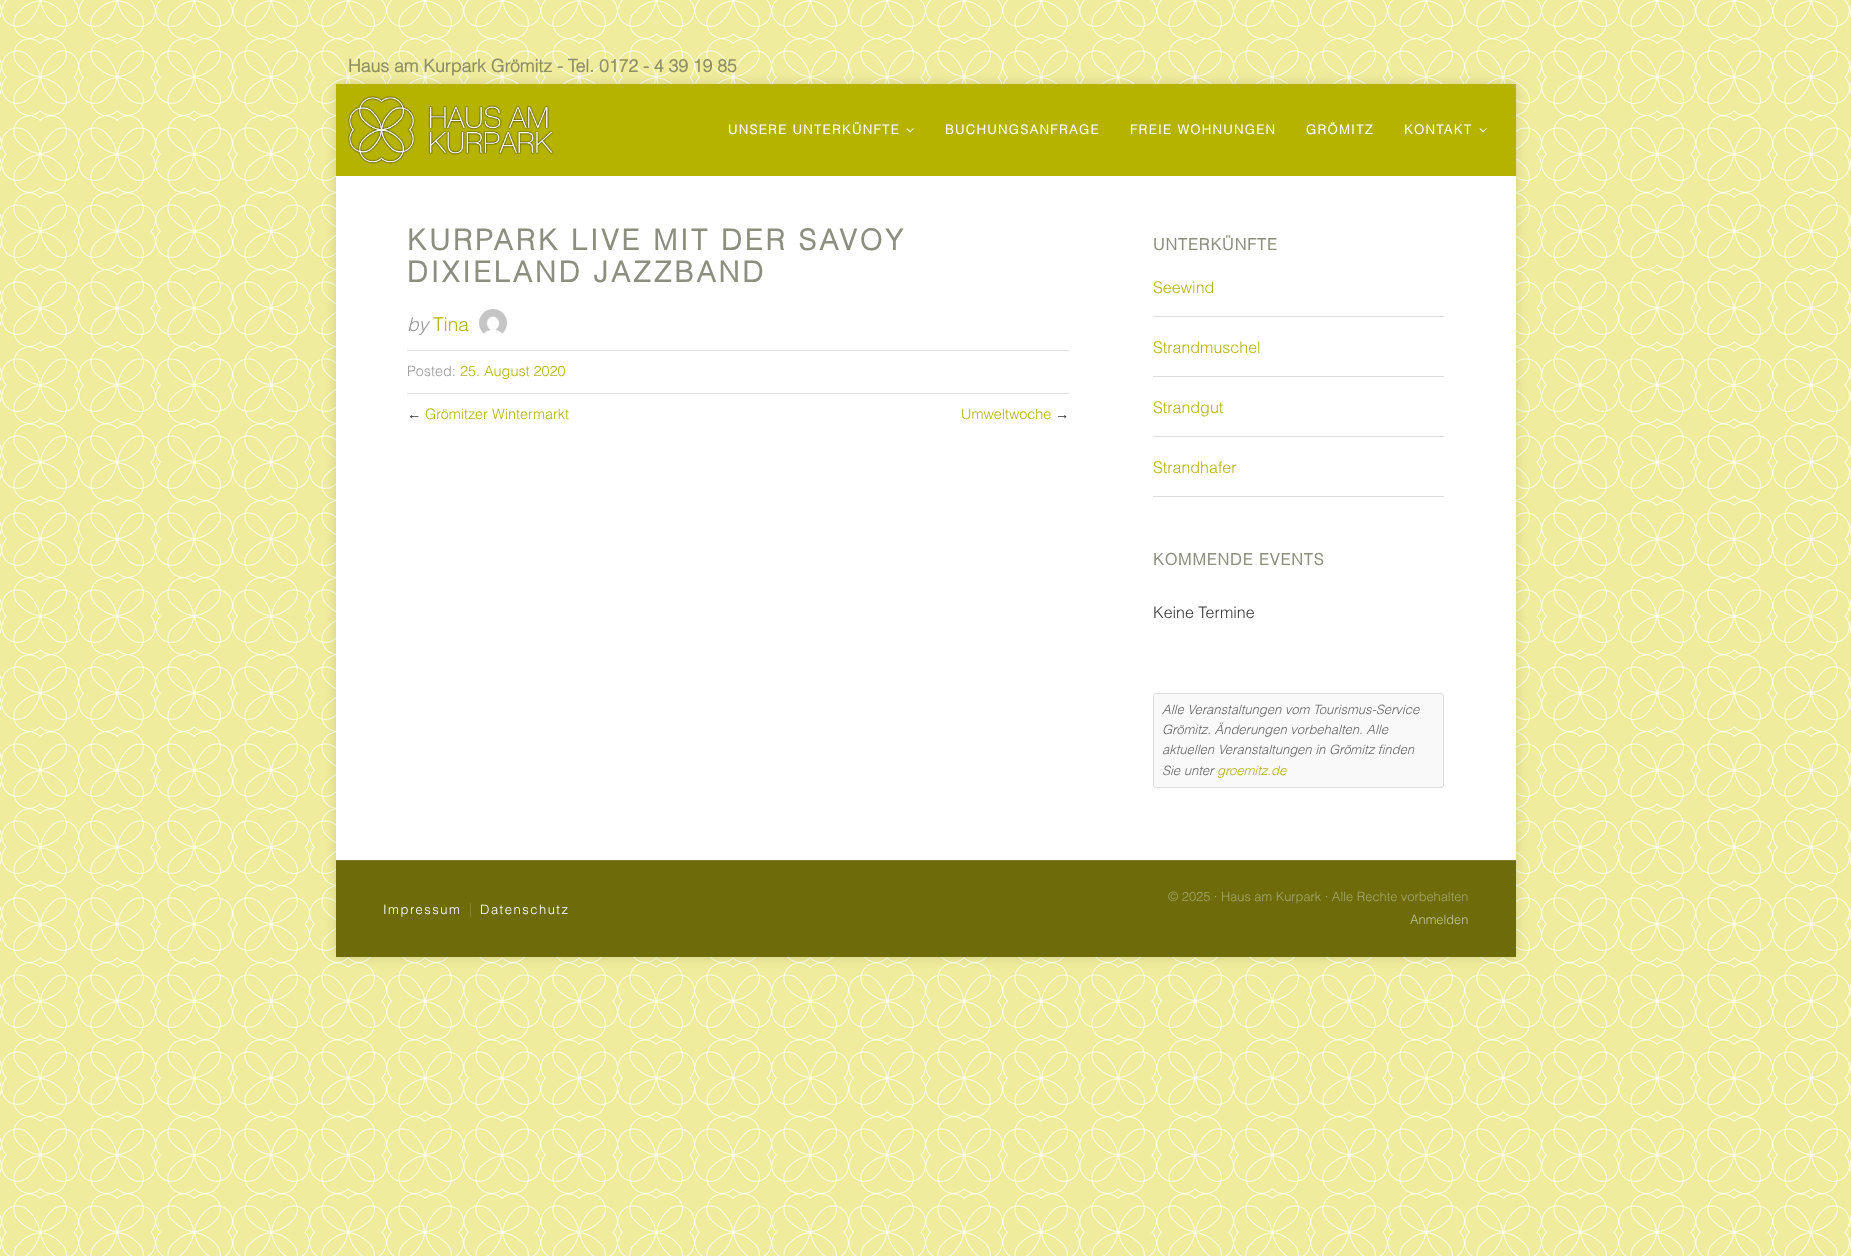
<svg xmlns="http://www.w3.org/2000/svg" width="1851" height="1256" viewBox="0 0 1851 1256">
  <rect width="100%" height="100%" fill="rgb(255,255,255)"/>
  <image x="0" y="0" width="1851" height="1256" href="pic1.png"/>
  <rect x="336" y="84" width="1180" height="873" fill="rgba(0,0,0,0.12)" filter="blur(6px)"/>
  <text x="348" y="72" font-family="Helvetica" font-size="17.6" font-weight="bold" fill="rgb(144,142,99)">Haus am Kurpark Grömitz - Tel. 0172 - 4 39 19 85</text>
  <rect x="336" y="176" width="1180" height="684" fill="rgb(255,255,255)"/>
  <rect x="336" y="84" width="1180" height="92" fill="rgb(181,178,0)"/>
  <image x="348" y="96" width="206" height="68" href="pic2.png"/>
  <text x="728" y="134" font-family="Helvetica" font-size="12.8" font-weight="bold" letter-spacing="1.5" fill="rgb(255,255,255)">UNSERE UNTERKÜNFTE</text>
  <image x="906" y="128" width="8" height="5" href="pic3.png"/>
  <g font-family="Helvetica" font-size="12.8" font-weight="bold" letter-spacing="1.5" fill="rgb(255,255,255)">
    <text x="945" y="134">BUCHUNGSANFRAGE</text>
    <text x="1130" y="134">FREIE WOHNUNGEN</text>
    <text x="1306" y="134">GRÖMITZ</text>
    <text x="1404" y="134">KONTAKT</text>
  </g>
  <image x="1479" y="128" width="8" height="5" href="pic3.png"/>
  <g font-family="Helvetica" font-size="28.75" font-weight="bold" letter-spacing="3" fill="rgb(140,143,128)">
    <text>
      <tspan x="407" y="250">KURPARK LIVE MIT DER SAVOY</tspan>
      <tspan x="407" y="282">DIXIELAND JAZZBAND</tspan>
    </text>
  </g>
  <text x="407" y="331" font-family="Helvetica" font-size="19" font-weight="300" font-style="italic" fill="rgb(153,153,153)">by</text>
  <text x="433" y="331" font-family="Helvetica" font-size="19" font-weight="300" fill="rgb(182,178,16)">Tina</text>
  <image x="479" y="309" width="28" height="25" href="pic4.png"/>
  <rect x="407" y="350" width="662" height="1" fill="rgb(224,224,224)"/>
  <text x="407" y="376" font-family="Helvetica" font-size="14.4" font-weight="300" fill="rgb(153,153,153)">Posted:</text>
  <text x="460" y="376" font-family="Helvetica" font-size="14.4" font-weight="300" fill="rgb(182,178,16)">25. August 2020</text>
  <rect x="407" y="393" width="662" height="1" fill="rgb(224,224,224)"/>
  <text x="407" y="419" font-family="Liberation Serif" font-size="14.4" fill="rgb(51,51,51)">←</text>
  <g font-family="Helvetica" font-size="14.4" font-weight="300" fill="rgb(182,178,16)">
    <text x="425" y="419">Grömitzer Wintermarkt</text>
    <text x="961" y="419">Umweltwoche</text>
  </g>
  <text x="1055" y="419" font-family="Liberation Serif" font-size="14.4" fill="rgb(51,51,51)">→</text>
  <text x="1153" y="250" font-family="Helvetica" font-size="16" font-weight="bold" letter-spacing="1" fill="rgb(140,143,128)">UNTERKÜNFTE</text>
  <text x="1153" y="293" font-family="Helvetica" font-size="16" font-weight="300" fill="rgb(182,178,16)">Seewind</text>
  <rect x="1153" y="316" width="291" height="1" fill="rgb(221,221,221)"/>
  <text x="1153" y="353" font-family="Helvetica" font-size="16" font-weight="300" fill="rgb(182,178,16)">Strandmuschel</text>
  <rect x="1153" y="376" width="291" height="1" fill="rgb(221,221,221)"/>
  <text x="1153" y="413" font-family="Helvetica" font-size="16" font-weight="300" fill="rgb(182,178,16)">Strandgut</text>
  <rect x="1153" y="436" width="291" height="1" fill="rgb(221,221,221)"/>
  <text x="1153" y="473" font-family="Helvetica" font-size="16" font-weight="300" fill="rgb(182,178,16)">Strandhafer</text>
  <rect x="1153" y="496" width="291" height="1" fill="rgb(221,221,221)"/>
  <text x="1153" y="565" font-family="Helvetica" font-size="16" font-weight="bold" letter-spacing="1" fill="rgb(140,143,128)">KOMMENDE EVENTS</text>
  <text x="1153" y="618" font-family="Helvetica" font-size="16" font-weight="300" fill="rgb(51,51,51)">Keine Termine</text>
  <rect x="1153.5" y="693.5" width="290" height="94" rx="2.5" fill="rgb(249,249,249)" stroke="rgb(221,221,221)"/>
  <g font-family="Helvetica" font-size="13" font-weight="300" font-style="italic" fill="rgb(102,102,102)">
    <text>
      <tspan x="1162" y="714">Alle Veranstaltungen vom Tourismus-Service</tspan>
      <tspan x="1162" y="734">Grömitz. Änderungen vorbehalten. Alle</tspan>
      <tspan x="1162" y="754">aktuellen Veranstaltungen in Grömitz finden</tspan>
      <tspan x="1162" y="775">Sie unter</tspan>
    </text>
  </g>
  <text x="1217" y="775" font-family="Helvetica" font-size="13" font-weight="300" font-style="italic" fill="rgb(182,178,16)">groemitz.de</text>
  <rect x="336" y="861" width="1180" height="96" fill="rgb(109,107,10)"/>
  <rect x="336" y="860" width="1180" height="1" fill="rgb(127,125,39)"/>
  <text x="383" y="914" font-family="Helvetica" font-size="13" font-weight="300" letter-spacing="1.5" fill="rgb(255,255,255)">Impressum</text>
  <text x="469" y="914" font-family="Helvetica" font-size="14.4" font-weight="300" fill="rgb(138,137,59)">|</text>
  <text x="480" y="914" font-family="Helvetica" font-size="13" font-weight="300" letter-spacing="1.5" fill="rgb(255,255,255)">Datenschutz</text>
  <text x="1168" y="901" font-family="Helvetica" font-size="12.8" font-weight="300" fill="rgb(167,166,108)">© 2025 · Haus am Kurpark · Alle Rechte vorbehalten</text>
  <text x="1410" y="924" font-family="Helvetica" font-size="12.8" font-weight="300" fill="rgb(197,196,157)">Anmelden</text>
</svg>
